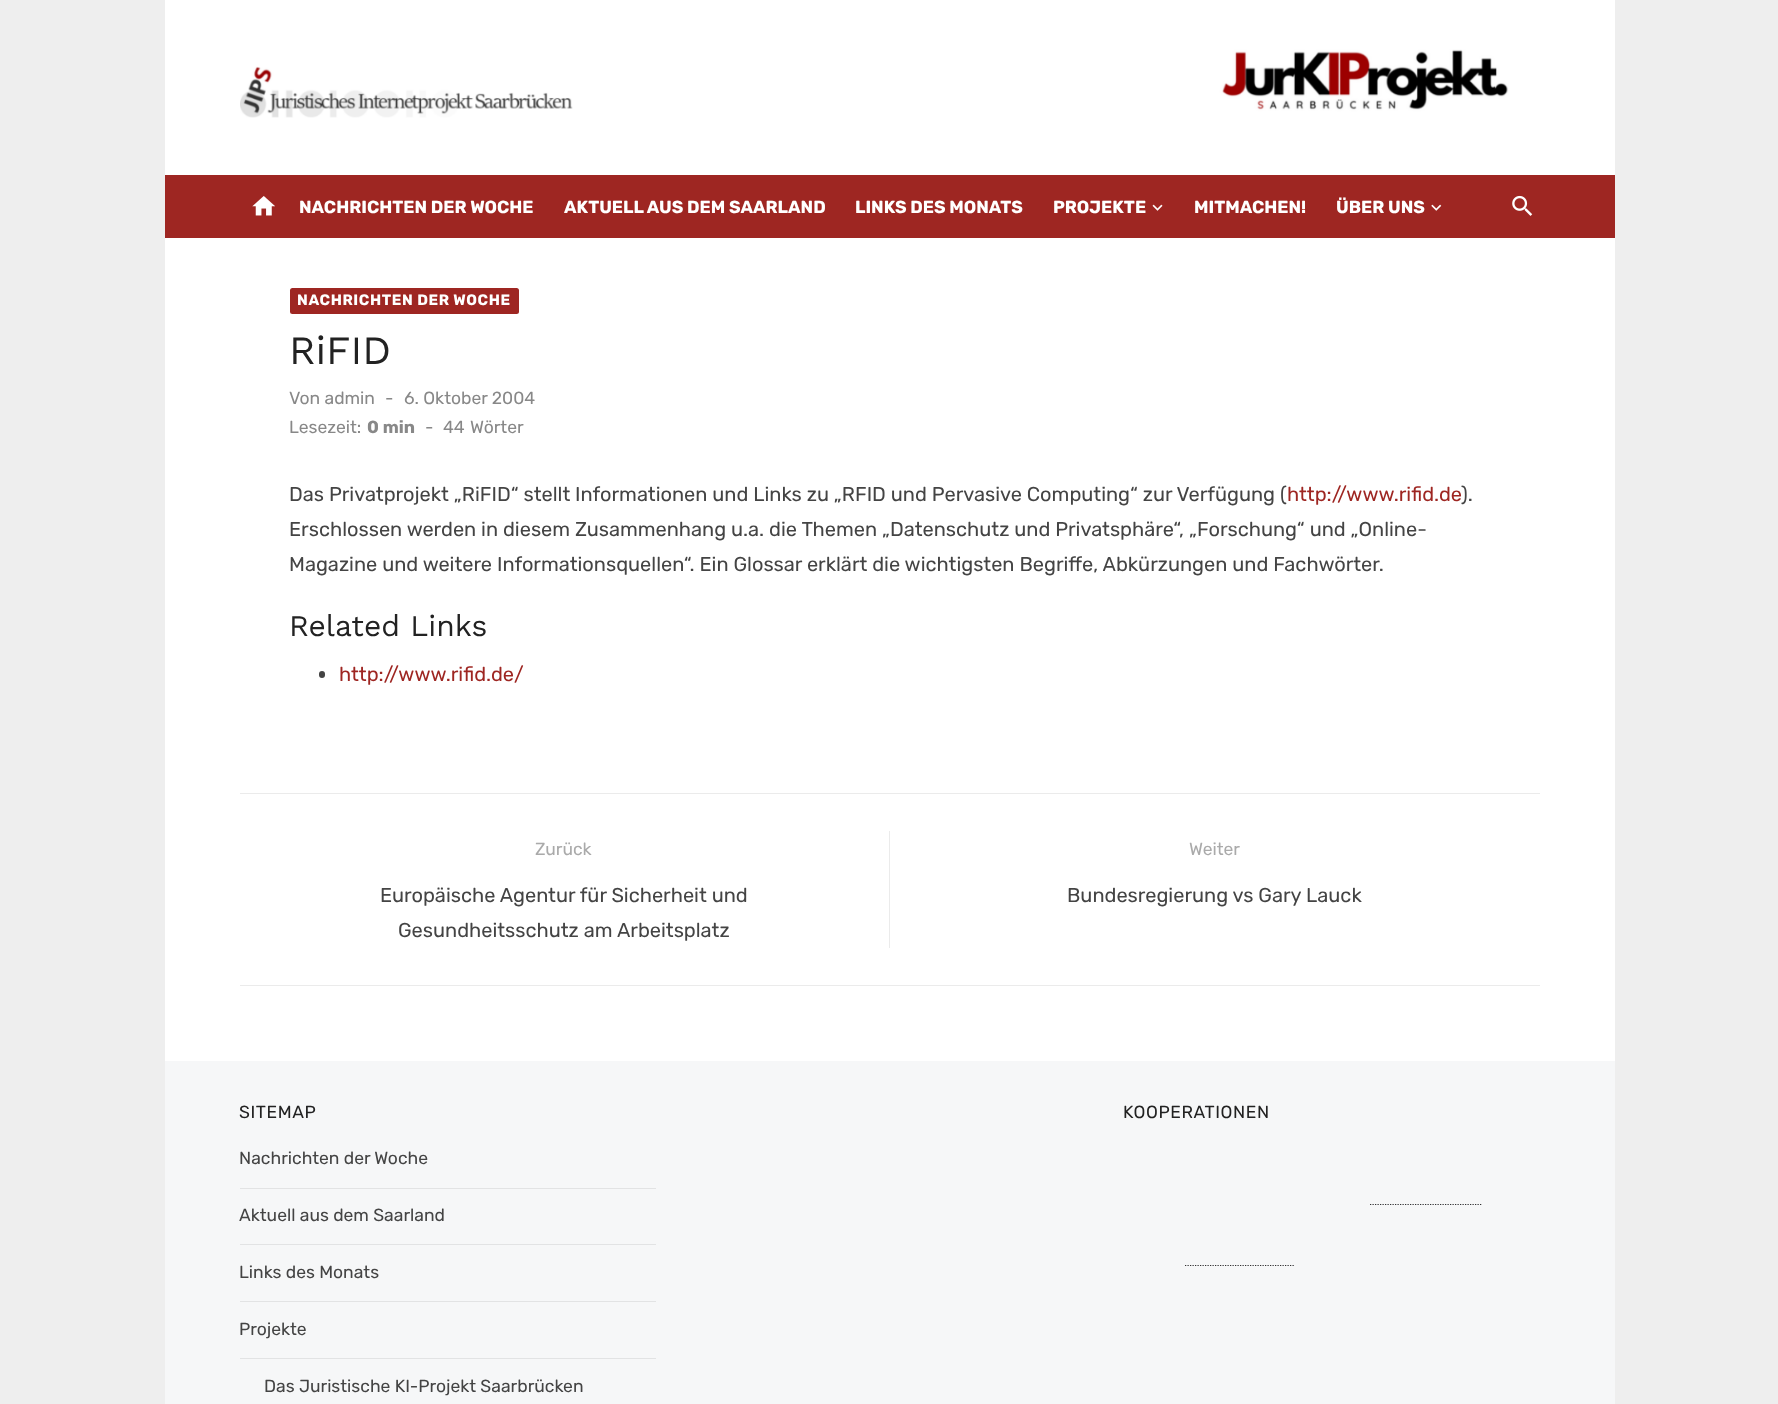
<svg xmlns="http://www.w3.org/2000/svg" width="1778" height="1404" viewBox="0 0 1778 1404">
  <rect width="100%" height="100%" fill="rgb(238,238,238)"/>
  <rect x="165" y="0" width="1450" height="1061" fill="rgb(255,255,255)"/>
  <image x="240" y="49" width="1269" height="69" href="pic1.png"/>
  <rect x="165" y="175" width="1450" height="63" fill="rgb(158,38,34)"/>
  <image x="252" y="196" width="23" height="20" href="pic2.png"/>
  <g font-family="Rubik" font-size="17.5" font-weight="bold" fill="rgb(255,255,255)">
    <text x="299" y="213">NACHRICHTEN DER WOCHE</text>
    <text x="564" y="213">AKTUELL AUS DEM SAARLAND</text>
    <text x="855" y="213">LINKS DES MONATS</text>
    <text x="1053" y="213">PROJEKTE</text>
  </g>
  <image x="1152" y="204" width="11" height="7" href="pic3.png"/>
  <g font-family="Rubik" font-size="17.5" font-weight="bold" fill="rgb(255,255,255)">
    <text x="1194" y="213">MITMACHEN!</text>
    <text x="1336" y="213">ÜBER UNS</text>
  </g>
  <image x="1431" y="204" width="11" height="7" href="pic4.png"/>
  <image x="1512" y="195" width="21" height="21" href="pic5.png"/>
  <rect x="290" y="288" width="229" height="26" rx="2.5" fill="rgb(158,38,34)"/>
  <text x="297" y="305" font-family="Rubik" font-size="15" font-weight="bold" letter-spacing="0.6" fill="rgb(255,255,255)">NACHRICHTEN DER WOCHE</text>
  <text x="289" y="364" font-family="Work Sans" font-size="40" fill="rgb(34,34,34)">RiFID</text>
  <g font-family="Rubik" font-size="17.5" fill="rgb(136,136,136)">
    <text x="289" y="404">Von admin</text>
    <text x="385" y="404">-</text>
    <text x="404" y="404">6. Oktober 2004</text>
    <text x="289" y="433">Lesezeit:</text>
  </g>
  <text x="367" y="433" font-family="Rubik" font-size="17.5" font-weight="bold" fill="rgb(136,136,136)">0 min</text>
  <g font-family="Rubik" font-size="17.5" fill="rgb(136,136,136)">
    <text x="425" y="433">-</text>
    <text x="443" y="433">44</text>
    <text x="470" y="433">Wörter</text>
  </g>
  <text x="289" y="501" font-family="Rubik" font-size="20" fill="rgb(68,68,68)">Das Privatprojekt „RiFID“ stellt Informationen und Links zu „RFID und Pervasive Computing“ zur Verfügung (</text>
  <text x="1287" y="501" font-family="Rubik" font-size="20" fill="rgb(158,38,34)">http://www.rifid.de</text>
  <g font-family="Rubik" font-size="20" fill="rgb(68,68,68)">
    <text x="1461" y="501">).</text>
    <text>
      <tspan x="289" y="536">Erschlossen werden in diesem Zusammenhang u.a. die Themen „Datenschutz und Privatsphäre“, „Forschung“ und „Online-</tspan>
      <tspan x="289" y="571">Magazine und weitere Informationsquellen“. Ein Glossar erklärt die wichtigsten Begriffe, Abkürzungen und Fachwörter.</tspan>
    </text>
  </g>
  <text x="289" y="636" font-family="Work Sans" font-size="30" fill="rgb(34,34,34)">Related Links</text>
  <rect x="319" y="671" width="6" height="7" rx="3" fill="rgb(68,68,68)"/>
  <text x="339" y="681" font-family="Rubik" font-size="20" fill="rgb(158,38,34)">http://www.rifid.de/</text>
  <rect x="240" y="793" width="1300" height="1" fill="rgb(235,235,235)"/>
  <rect x="240" y="985" width="1300" height="1" fill="rgb(235,235,235)"/>
  <rect x="889" y="831" width="1" height="117" fill="rgb(235,235,235)"/>
  <text x="535" y="855" font-family="Rubik" font-size="17.5" fill="rgb(170,170,170)">Zurück</text>
  <g font-family="Rubik" font-size="20" fill="rgb(68,68,68)">
    <text x="380" y="902">Europäische Agentur für Sicherheit und</text>
    <text x="398" y="937">Gesundheitsschutz am Arbeitsplatz</text>
  </g>
  <text x="1189" y="855" font-family="Rubik" font-size="17.5" fill="rgb(170,170,170)">Weiter</text>
  <text x="1067" y="902" font-family="Rubik" font-size="20" fill="rgb(68,68,68)">Bundesregierung vs Gary Lauck</text>
  <rect x="165" y="1061" width="1450" height="343" fill="rgb(246,247,248)"/>
  <text x="239" y="1118" font-family="Rubik" font-size="17.5" letter-spacing="0.6" fill="rgb(34,34,34)">SITEMAP</text>
  <rect x="240" y="1188" width="416" height="1" fill="rgb(226,227,228)"/>
  <text x="239" y="1164" font-family="Rubik" font-size="17.5" fill="rgb(68,68,68)">Nachrichten der Woche</text>
  <rect x="240" y="1244" width="416" height="1" fill="rgb(226,227,228)"/>
  <text x="239" y="1221" font-family="Rubik" font-size="17.5" fill="rgb(68,68,68)">Aktuell aus dem Saarland</text>
  <rect x="240" y="1301" width="416" height="1" fill="rgb(226,227,228)"/>
  <text x="239" y="1278" font-family="Rubik" font-size="17.5" fill="rgb(68,68,68)">Links des Monats</text>
  <rect x="240" y="1358" width="416" height="1" fill="rgb(226,227,228)"/>
  <g font-family="Rubik" font-size="17.5" fill="rgb(68,68,68)">
    <text x="239" y="1335">Projekte</text>
    <text x="264" y="1392">Das Juristische KI-Projekt Saarbrücken</text>
  </g>
  <text x="1123" y="1118" font-family="Rubik" font-size="17.5" letter-spacing="0.6" fill="rgb(34,34,34)">KOOPERATIONEN</text>
  <path d="M1370 1204.5H1482.5" fill="none" stroke="rgb(49,49,50)" stroke-width="1.2" stroke-dasharray="1.25 1.25"/>
  <path d="M1185 1265.5H1295" fill="none" stroke="rgb(49,49,50)" stroke-width="1.2" stroke-dasharray="1.25 1.25"/>
</svg>
